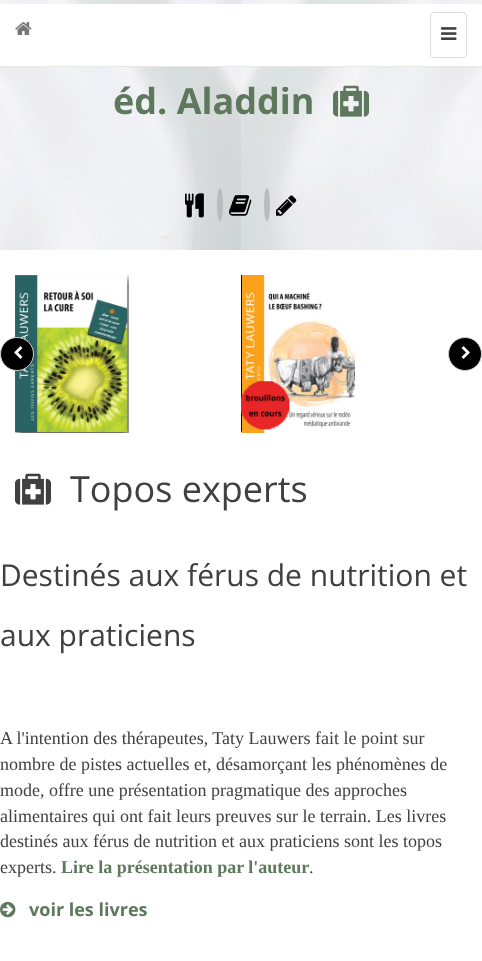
<svg xmlns="http://www.w3.org/2000/svg" width="482" height="961" viewBox="0 0 482 961">
  <rect width="100%" height="100%" fill="rgb(255,255,255)"/>
  <image x="0" y="0" width="482" height="250" href="pic3.png"/>
  <rect x="0" y="4" width="482" height="62" fill="rgb(255,255,255)"/>
  <rect x="0" y="66" width="482" height="1" fill="rgb(231,231,231)"/>
  <image x="15" y="22" width="17" height="13" href="pic1.png"/>
  <rect x="430.5" y="12.5" width="36" height="45" rx="3.5" fill="none" stroke="rgb(221,221,221)"/>
  <image x="441" y="27" width="16" height="13" href="pic2.png"/>
  <text x="113" y="114" font-family="Open Sans" font-size="36" font-weight="bold" fill="rgb(93,120,93)">éd. Aladdin</text>
  <image x="333" y="85" width="36" height="32" href="pic4.png"/>
  <image x="185" y="193" width="19" height="25" href="pic5.png"/>
  <ellipse cx="220" cy="204.5" rx="3" ry="16.5" fill="rgb(187,187,187)"/>
  <image x="229" y="195" width="23" height="21" href="pic6.png"/>
  <ellipse cx="267" cy="204.5" rx="3" ry="16.5" fill="rgb(187,187,187)"/>
  <image x="276" y="195" width="21" height="21" href="pic7.png"/>
  <image x="15" y="275" width="114" height="158" href="pic8.png"/>
  <image x="241" y="275" width="114" height="158" href="pic9.png"/>
  <circle cx="17" cy="354" r="16.5" fill="rgb(0,0,0)" stroke="rgb(204,204,204)"/>
  <image x="14" y="346" width="9" height="13" href="pic10.png"/>
  <circle cx="465" cy="354" r="16.5" fill="rgb(0,0,0)" stroke="rgb(204,204,204)"/>
  <image x="461" y="346" width="9" height="13" href="pic11.png"/>
  <image x="15" y="473" width="36" height="32" href="pic12.png"/>
  <text x="70" y="502" font-family="Open Sans" font-size="36" fill="rgb(64,64,64)">Topos experts</text>
  <g font-family="Open Sans" font-size="30" fill="rgb(64,64,64)">
    <text x="0" y="586">Destinés aux férus de nutrition et</text>
    <text x="0" y="646">aux praticiens</text>
  </g>
  <g font-family="Liberation Serif" font-size="18" fill="rgb(64,64,64)">
    <text>
      <tspan x="0" y="744">A l'intention des thérapeutes, Taty Lauwers fait le point sur</tspan>
      <tspan x="0" y="770">nombre de pistes actuelles et, désamorçant les phénomènes de</tspan>
      <tspan x="0" y="796">mode, offre une présentation pragmatique des approches</tspan>
      <tspan x="0" y="822">alimentaires qui ont fait leurs preuves sur le terrain. Les livres</tspan>
      <tspan x="0" y="847">destinés aux férus de nutrition et aux praticiens sont les topos</tspan>
      <tspan x="0" y="873">experts.</tspan>
    </text>
  </g>
  <text x="61" y="873" font-family="Liberation Serif" font-size="18" font-weight="bold" fill="rgb(93,120,93)">Lire la présentation par l'auteur</text>
  <text x="309" y="873" font-family="Liberation Serif" font-size="18" fill="rgb(64,64,64)">.</text>
  <image x="0" y="901" width="16" height="17" href="pic13.png"/>
  <text x="29" y="916" font-family="Open Sans" font-size="18" font-weight="bold" fill="rgb(93,120,93)">voir les livres</text>
</svg>
